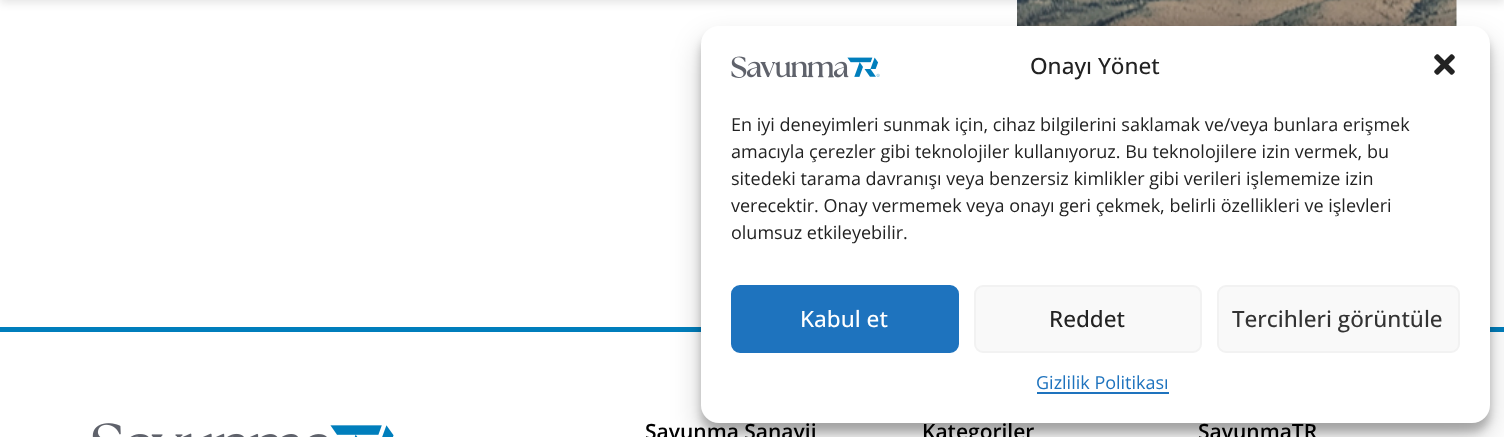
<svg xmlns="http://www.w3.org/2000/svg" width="1504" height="437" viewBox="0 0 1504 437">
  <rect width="100%" height="100%" fill="rgb(255,255,255)"/>
  <image x="1017" y="0" width="440" height="26" href="pic3.png"/>
  <rect x="0" y="327" width="1504" height="5" fill="rgb(0,126,188)"/>
  <rect x="701" y="35" width="789" height="397" rx="18" fill="rgba(0,0,0,0.23)" filter="blur(4.5px)"/>
  <rect x="701" y="41" width="789" height="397" rx="18" fill="rgba(0,0,0,0.19)" filter="blur(15px)"/>
  <rect x="701" y="26" width="789" height="397" rx="18" fill="rgb(255,255,255)"/>
  <image x="731" y="56" width="149" height="22" href="pic1.png"/>
  <text x="1030" y="74" font-family="Open Sans" font-size="22.5" font-weight="500" fill="rgb(34,34,34)">Onayı Yönet</text>
  <image x="1434" y="54" width="21" height="21" href="pic2.png"/>
  <g font-family="Open Sans" font-size="18" fill="rgb(34,34,34)">
    <text>
      <tspan x="731" y="131">En iyi deneyimleri sunmak için, cihaz bilgilerini saklamak ve/veya bunlara erişmek</tspan>
      <tspan x="731" y="158">amacıyla çerezler gibi teknolojiler kullanıyoruz. Bu teknolojilere izin vermek, bu</tspan>
      <tspan x="731" y="185">sitedeki tarama davranışı veya benzersiz kimlikler gibi verileri işlememize izin</tspan>
      <tspan x="731" y="212">verecektir. Onay vermemek veya onayı geri çekmek, belirli özellikleri ve işlevleri</tspan>
      <tspan x="731" y="239">olumsuz etkileyebilir.</tspan>
    </text>
  </g>
  <rect x="732" y="286" width="226" height="66" rx="8" fill="rgb(30,115,190)" stroke="rgb(30,115,190)" stroke-width="2"/>
  <text x="800" y="327" font-family="Open Sans" font-size="22.5" font-weight="500" fill="rgb(255,255,255)">Kabul et</text>
  <rect x="975" y="286" width="226" height="66" rx="8" fill="rgb(249,249,249)" stroke="rgb(242,242,242)" stroke-width="2"/>
  <text x="1049" y="327" font-family="Open Sans" font-size="22.5" font-weight="500" fill="rgb(34,34,34)">Reddet</text>
  <rect x="1218" y="286" width="241" height="66" rx="8" fill="rgb(249,249,249)" stroke="rgb(242,242,242)" stroke-width="2"/>
  <text x="1232" y="327" font-family="Open Sans" font-size="22.5" font-weight="500" fill="rgb(51,51,51)">Tercihleri görüntüle</text>
  <text x="1036" y="389" font-family="Open Sans" font-size="18" fill="rgb(30,115,190)">Gizlilik Politikası</text>
  <rect x="1037" y="392" width="132" height="2" fill="rgb(30,115,190)"/>
  <rect x="0" y="-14" width="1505" height="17" fill="rgba(0,0,0,0.1)" filter="blur(4.5px)"/>
  <image x="92" y="423" width="302" height="14" href="pic4.png"/>
  <g font-family="Open Sans" font-size="21" font-weight="600" fill="rgb(0,0,0)">
    <text x="645" y="439">Savunma Sanayii</text>
    <text x="922" y="439">Kategoriler</text>
    <text x="1198" y="439">SavunmaTR</text>
  </g>
</svg>
